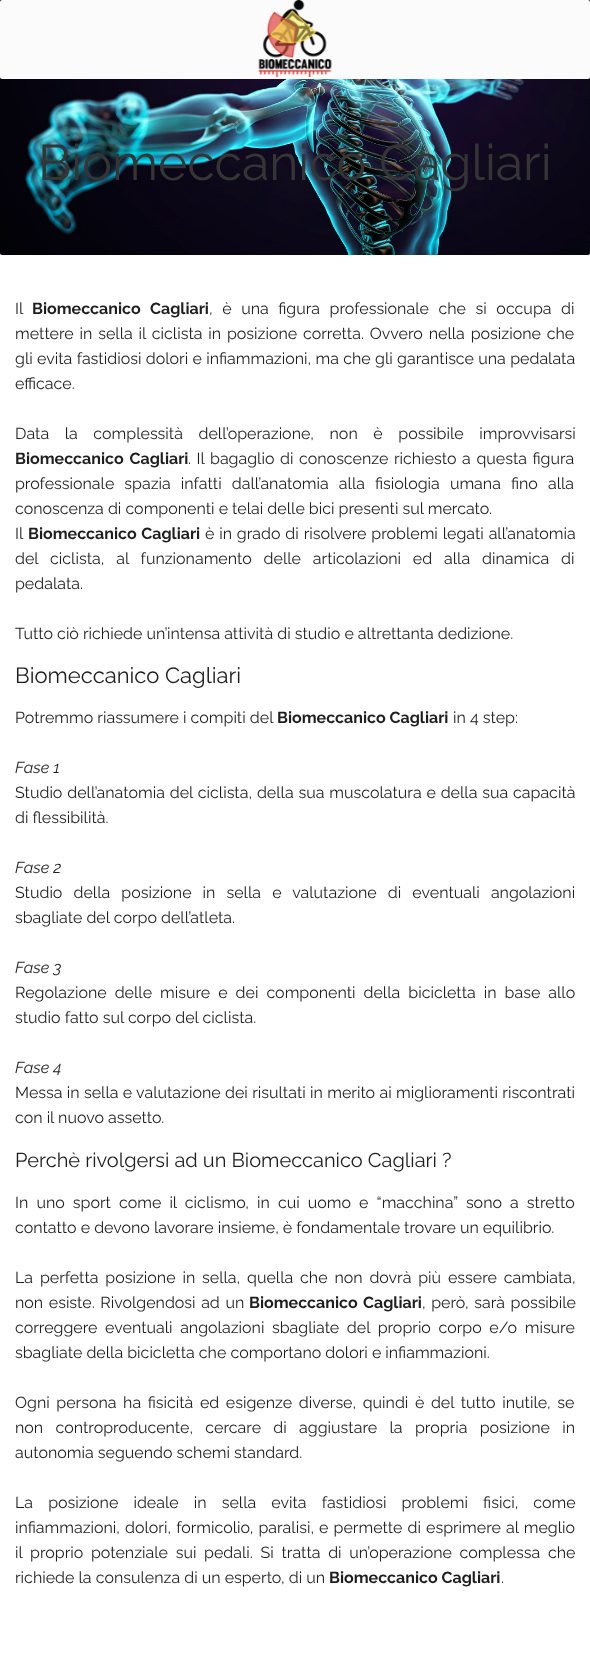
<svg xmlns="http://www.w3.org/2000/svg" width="590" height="1678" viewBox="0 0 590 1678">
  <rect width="100%" height="100%" fill="rgb(255,255,255)"/>
  <image x="0" y="0" width="590" height="255" href="pic2.png"/>
  <rect x="0" y="0" width="590" height="79" rx="2" fill="rgb(251,251,251)"/>
  <image x="258" y="0" width="74" height="77" href="pic1.png"/>
  <text x="38" y="180" font-family="Raleway" font-size="50" fill="rgb(53,53,53)">Biomeccanico Cagliari</text>
  <text x="15" y="314" font-family="Raleway" font-size="16" fill="rgb(30,30,30)">Il</text>
  <text x="32" y="314" word-spacing="5.5" font-family="Raleway" font-size="16" font-weight="bold" fill="rgb(30,30,30)">Biomeccanico Cagliari</text>
  <g font-family="Raleway" font-size="16" fill="rgb(30,30,30)">
    <text x="209" y="314" word-spacing="5.5">, è una figura professionale che si occupa di</text>
    <text>
      <tspan x="15" y="339" word-spacing="1.75">mettere in sella il ciclista in posizione corretta. Ovvero nella posizione che</tspan>
      <tspan x="15" y="364" word-spacing="0.25">gli evita fastidiosi dolori e infiammazioni, ma che gli garantisce una pedalata</tspan>
      <tspan x="15" y="389">efficace.</tspan>
    </text>
    <text x="15" y="439" word-spacing="11.5">Data la complessità dell’operazione, non è possibile improvvisarsi</text>
  </g>
  <text x="15" y="464" word-spacing="2" font-family="Raleway" font-size="16" font-weight="bold" fill="rgb(30,30,30)">Biomeccanico Cagliari</text>
  <g font-family="Raleway" font-size="16" fill="rgb(30,30,30)">
    <text x="188" y="464" word-spacing="1.5">. Il bagaglio di conoscenze richiesto a questa figura</text>
    <text>
      <tspan x="15" y="489" word-spacing="6">professionale spazia infatti dall’anatomia alla fisiologia umana fino alla</tspan>
      <tspan x="15" y="514">conoscenza di componenti e telai delle bici presenti sul mercato.</tspan>
      <tspan x="15" y="539">Il</tspan>
    </text>
  </g>
  <text x="28" y="539" word-spacing="0.75" font-family="Raleway" font-size="16" font-weight="bold" fill="rgb(30,30,30)">Biomeccanico Cagliari</text>
  <g font-family="Raleway" font-size="16" fill="rgb(30,30,30)">
    <text x="205" y="539" word-spacing="0.75">è in grado di risolvere problemi legati all’anatomia</text>
    <text>
      <tspan x="15" y="564" word-spacing="7.75">del ciclista, al funzionamento delle articolazioni ed alla dinamica di</tspan>
      <tspan x="15" y="589">pedalata.</tspan>
    </text>
    <text x="15" y="639">Tutto ciò richiede un’intensa attività di studio e altrettanta dedizione.</text>
  </g>
  <text x="15" y="683" font-family="Raleway" font-size="22" fill="rgb(30,30,30)">Biomeccanico Cagliari</text>
  <text x="15" y="723" font-family="Raleway" font-size="16" fill="rgb(30,30,30)">Potremmo riassumere i compiti del</text>
  <text x="277" y="723" font-family="Raleway" font-size="16" font-weight="bold" fill="rgb(30,30,30)">Biomeccanico Cagliari</text>
  <text x="453" y="723" font-family="Raleway" font-size="16" fill="rgb(30,30,30)">in 4 step:</text>
  <text x="15" y="773" font-family="Raleway" font-size="16" font-style="italic" fill="rgb(30,30,30)">Fase 1</text>
  <g font-family="Raleway" font-size="16" fill="rgb(30,30,30)">
    <text>
      <tspan x="15" y="798" word-spacing="0.75">Studio dell’anatomia del ciclista, della sua muscolatura e della sua capacità</tspan>
      <tspan x="15" y="823">di flessibilità.</tspan>
    </text>
  </g>
  <text x="15" y="873" font-family="Raleway" font-size="16" font-style="italic" fill="rgb(30,30,30)">Fase 2</text>
  <g font-family="Raleway" font-size="16" fill="rgb(30,30,30)">
    <text>
      <tspan x="15" y="898" word-spacing="7">Studio della posizione in sella e valutazione di eventuali angolazioni</tspan>
      <tspan x="15" y="923">sbagliate del corpo dell’atleta.</tspan>
    </text>
  </g>
  <text x="15" y="973" font-family="Raleway" font-size="16" font-style="italic" fill="rgb(30,30,30)">Fase 3</text>
  <g font-family="Raleway" font-size="16" fill="rgb(30,30,30)">
    <text>
      <tspan x="15" y="998" word-spacing="3.9">Regolazione delle misure e dei componenti della bicicletta in base allo</tspan>
      <tspan x="15" y="1023">studio fatto sul corpo del ciclista.</tspan>
    </text>
  </g>
  <text x="15" y="1073" font-family="Raleway" font-size="16" font-style="italic" fill="rgb(30,30,30)">Fase 4</text>
  <g font-family="Raleway" font-size="16" fill="rgb(30,30,30)">
    <text>
      <tspan x="15" y="1098" word-spacing="0.25">Messa in sella e valutazione dei risultati in merito ai miglioramenti riscontrati</tspan>
      <tspan x="15" y="1123">con il nuovo assetto.</tspan>
    </text>
  </g>
  <text x="15" y="1167" font-family="Raleway" font-size="20" fill="rgb(30,30,30)">Perchè rivolgersi ad un Biomeccanico Cagliari ?</text>
  <g font-family="Raleway" font-size="16" fill="rgb(30,30,30)">
    <text>
      <tspan x="15" y="1208" word-spacing="4">In uno sport come il ciclismo, in cui uomo e “macchina” sono a stretto</tspan>
      <tspan x="15" y="1233">contatto e devono lavorare insieme, è fondamentale trovare un equilibrio.</tspan>
    </text>
    <text>
      <tspan x="15" y="1283" word-spacing="2.75">La perfetta posizione in sella, quella che non dovrà più essere cambiata,</tspan>
      <tspan x="15" y="1308" word-spacing="1.5">non esiste. Rivolgendosi ad un</tspan>
    </text>
  </g>
  <text x="249" y="1308" word-spacing="1.5" font-family="Raleway" font-size="16" font-weight="bold" fill="rgb(30,30,30)">Biomeccanico Cagliari</text>
  <g font-family="Raleway" font-size="16" fill="rgb(30,30,30)">
    <text x="422" y="1308" word-spacing="1.5">, però, sarà possibile</text>
    <text>
      <tspan x="15" y="1333" word-spacing="3.5">correggere eventuali angolazioni sbagliate del proprio corpo e/o misure</tspan>
      <tspan x="15" y="1358">sbagliate della bicicletta che comportano dolori e infiammazioni.</tspan>
    </text>
    <text>
      <tspan x="15" y="1408" word-spacing="2.5">Ogni persona ha fisicità ed esigenze diverse, quindi è del tutto inutile, se</tspan>
      <tspan x="15" y="1433" word-spacing="8.25">non controproducente, cercare di aggiustare la propria posizione in</tspan>
      <tspan x="15" y="1458">autonomia seguendo schemi standard.</tspan>
    </text>
    <text>
      <tspan x="15" y="1508" word-spacing="11">La posizione ideale in sella evita fastidiosi problemi fisici, come</tspan>
      <tspan x="15" y="1533" word-spacing="1">infiammazioni, dolori, formicolio, paralisi, e permette di esprimere al meglio</tspan>
      <tspan x="15" y="1558" word-spacing="3.6">il proprio potenziale sui pedali. Si tratta di un’operazione complessa che</tspan>
      <tspan x="15" y="1583">richiede la consulenza di un esperto, di un</tspan>
    </text>
  </g>
  <text x="329" y="1583" font-family="Raleway" font-size="16" font-weight="bold" fill="rgb(30,30,30)">Biomeccanico Cagliari</text>
  <text x="501" y="1583" font-family="Raleway" font-size="16" fill="rgb(30,30,30)">.</text>
</svg>
